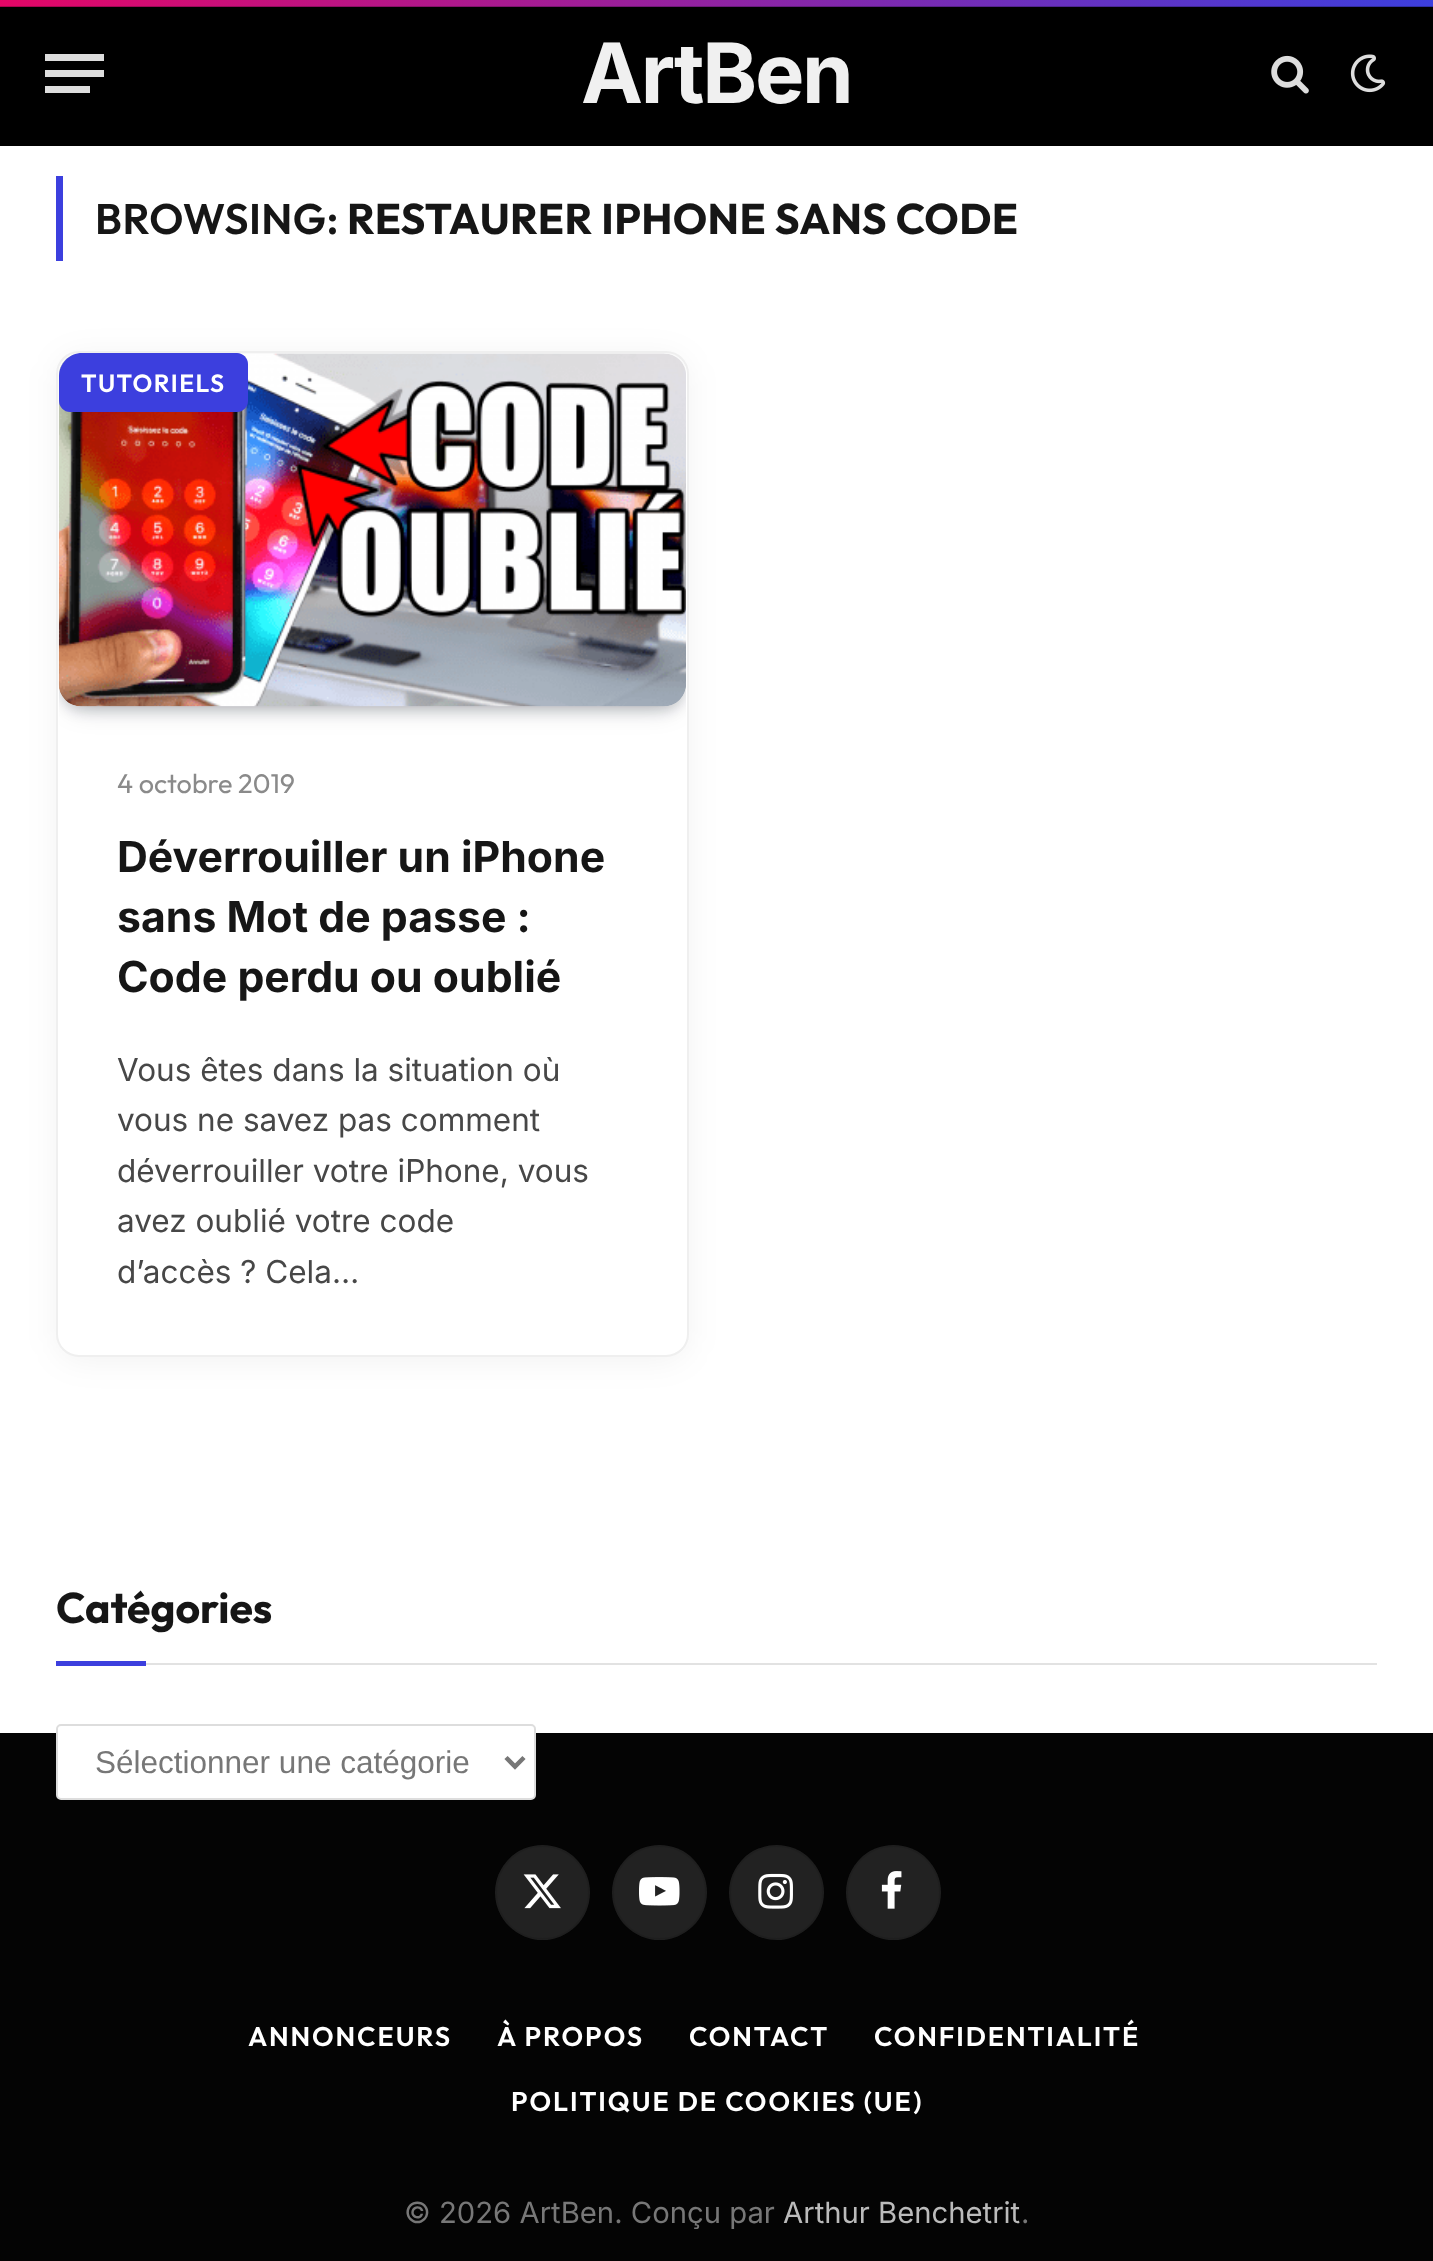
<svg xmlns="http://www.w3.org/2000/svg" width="1433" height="2261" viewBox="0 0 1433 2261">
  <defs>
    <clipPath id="clip1"><rect x="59" y="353" width="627" height="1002" rx="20"/></clipPath>
  </defs>
  <rect width="100%" height="100%" fill="rgb(255,255,255)"/>
  <rect x="0" y="6" width="1433" height="140" fill="rgb(0,0,0)"/>
  <image x="0" y="0" width="1433" height="7" href="pic1.png"/>
  <rect x="45" y="86" width="45" height="7" fill="rgb(221,221,221)"/>
  <rect x="45" y="54" width="59" height="7" fill="rgb(221,221,221)"/>
  <rect x="45" y="70" width="59" height="7" fill="rgb(221,221,221)"/>
  <text x="581" y="103" font-family="Inter" font-size="83" font-weight="bold" letter-spacing="-2.25" fill="rgb(240,240,240)">ArtBen</text>
  <image x="1271" y="55" width="38" height="39" href="pic2.png"/>
  <image x="1350" y="54" width="36" height="39" href="pic3.png"/>
  <rect x="56" y="176" width="7" height="85" fill="rgb(60,63,222)"/>
  <text x="95" y="234" font-family="Outfit" font-size="42.75" font-weight="600" letter-spacing="0.4" fill="rgb(22,22,22)">BROWSING:</text>
  <text x="347" y="234" font-family="Outfit" font-size="42.75" font-weight="bold" letter-spacing="0.4" fill="rgb(22,22,22)">RESTAURER IPHONE SANS CODE</text>
  <rect x="59" y="358" width="627" height="1001" rx="20" fill="rgba(0,0,0,0.06)" filter="blur(17px)"/>
  <rect x="57" y="352" width="631" height="1004" rx="22" fill="rgb(255,255,255)" stroke="rgb(239,239,239)" stroke-width="2"/>
  <g clip-path="url(#clip1)">
    <rect x="72" y="380" width="601" height="327" rx="9" fill="rgba(7,10,25,0.2)" filter="blur(13.5px)"/>
    <rect x="61" y="360" width="623" height="349" rx="20" fill="rgba(7,10,25,0.2)" filter="blur(7px)"/>
  </g>
  <image x="58" y="353" width="628" height="354" href="pic4.png"/>
  <path d="M82 353H237C243 353 248 358 248 364V401C248 407 243 412 237 412H70C64 412 59 407 59 401V376C59 363.5 69.5 353 82 353Z" fill="rgb(60,63,222)"/>
  <text x="81" y="392" font-family="Outfit" font-size="24.75" font-weight="600" letter-spacing="1.5" fill="rgb(255,255,255)">TUTORIELS</text>
  <text x="117" y="793" font-family="Outfit" font-size="27" fill="rgb(138,138,138)">4 octobre 2019</text>
  <g font-family="Inter" font-size="42.75" font-weight="bold" fill="rgb(22,22,22)">
    <text>
      <tspan x="117" y="872">Déverrouiller un iPhone</tspan>
      <tspan x="117" y="932">sans Mot de passe :</tspan>
      <tspan x="117" y="992">Code perdu ou oublié</tspan>
    </text>
  </g>
  <g font-family="Inter" font-size="31.5" fill="rgb(71,71,71)">
    <text>
      <tspan x="117" y="1081">Vous êtes dans la situation où</tspan>
      <tspan x="117" y="1131">vous ne savez pas comment</tspan>
      <tspan x="117" y="1182">déverrouiller votre iPhone, vous</tspan>
      <tspan x="117" y="1232">avez oublié votre code</tspan>
      <tspan x="117" y="1283">d’accès ? Cela…</tspan>
    </text>
  </g>
  <rect x="146" y="1663" width="1231" height="2" fill="rgb(226,226,226)"/>
  <text x="56" y="1623" font-family="Outfit" font-size="42.75" font-weight="bold" fill="rgb(22,22,22)">Catégories</text>
  <rect x="56" y="1661" width="90" height="5" fill="rgb(60,63,222)"/>
  <rect x="0" y="1733" width="1433" height="528" fill="rgb(4,4,4)"/>
  <rect x="57" y="1725" width="478" height="74" rx="4" fill="rgb(255,255,255)" stroke="rgb(221,221,221)" stroke-width="2"/>
  <path d="M506 1757.5L515 1766.5L524 1757.5" fill="none" stroke="rgb(119,119,119)" stroke-width="4.5"/>
  <text x="95" y="1773" font-family="Liberation Sans" font-size="31.5" fill="rgb(119,119,119)">Sélectionner une catégorie</text>
  <circle cx="542.5" cy="1892.5" r="47.5" fill="rgb(34,34,34)"/>
  <circle cx="542.5" cy="1892.5" r="46.5" fill="none" stroke="rgba(0,0,0,0.09)" stroke-width="2"/>
  <image x="523" y="1874" width="38" height="35" href="pic5.png"/>
  <circle cx="659.5" cy="1892.5" r="47.5" fill="rgb(34,34,34)"/>
  <circle cx="659.5" cy="1892.5" r="46.5" fill="none" stroke="rgba(0,0,0,0.09)" stroke-width="2"/>
  <image x="639" y="1877" width="41" height="29" href="pic6.png"/>
  <circle cx="776.5" cy="1892.5" r="47.5" fill="rgb(34,34,34)"/>
  <circle cx="776.5" cy="1892.5" r="46.5" fill="none" stroke="rgba(0,0,0,0.09)" stroke-width="2"/>
  <image x="758" y="1873" width="35" height="36" href="pic7.png"/>
  <circle cx="893.5" cy="1892.5" r="47.5" fill="rgb(34,34,34)"/>
  <circle cx="893.5" cy="1892.5" r="46.5" fill="none" stroke="rgba(0,0,0,0.09)" stroke-width="2"/>
  <image x="881" y="1871" width="21" height="38" href="pic8.png"/>
  <g font-family="Outfit" font-size="27" font-weight="600" letter-spacing="1.9" fill="rgb(255,255,255)">
    <text x="248" y="2046">ANNONCEURS</text>
    <text x="497" y="2046">À PROPOS</text>
    <text x="689" y="2046">CONTACT</text>
    <text x="874" y="2046">CONFIDENTIALITÉ</text>
    <text x="511" y="2111">POLITIQUE DE COOKIES (UE)</text>
  </g>
  <text x="404" y="2223" font-family="Inter" font-size="29.25" fill="rgb(119,119,119)">© 2026 ArtBen. Conçu par</text>
  <text x="783" y="2223" font-family="Inter" font-size="29.25" fill="rgb(187,187,187)">Arthur Benchetrit</text>
  <text x="1021" y="2223" font-family="Inter" font-size="29.25" fill="rgb(119,119,119)">.</text>
</svg>
